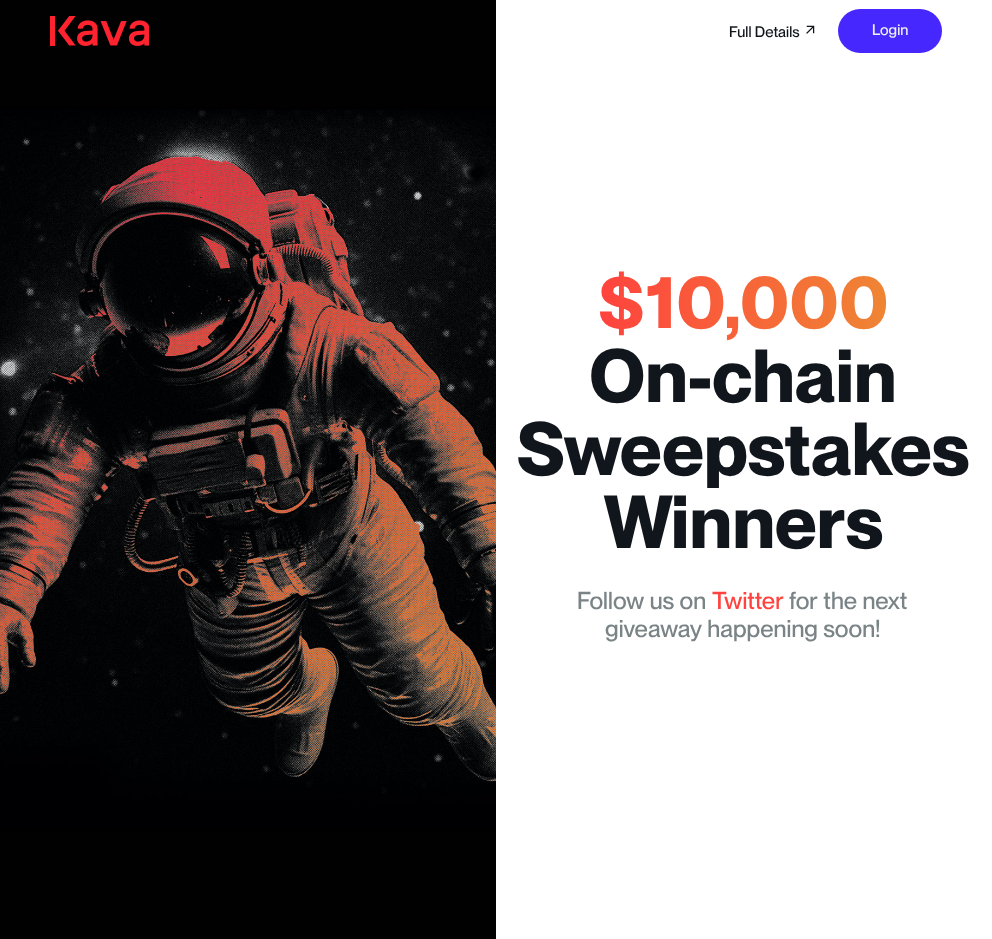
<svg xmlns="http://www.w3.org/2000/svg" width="992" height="939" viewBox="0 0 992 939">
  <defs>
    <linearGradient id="g1" gradientUnits="userSpaceOnUse" x1="598" y1="303" x2="887" y2="303"><stop offset="0" stop-color="rgb(255,67,62)"/><stop offset="1" stop-color="rgb(239,133,52)"/></linearGradient>
  </defs>
  <rect width="100%" height="100%" fill="rgb(255,255,255)"/>
  <image x="0" y="0" width="496" height="939" href="pic3.png"/>
  <image x="50" y="16" width="99" height="30" href="pic1.png"/>
  <text x="729" y="37" font-family="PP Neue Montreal" font-size="15" font-weight="500" fill="rgb(17,21,28)">Full Details</text>
  <image x="806" y="25" width="9" height="9" href="pic2.png"/>
  <rect x="838" y="9" width="104" height="44" rx="22" fill="rgb(70,40,255)"/>
  <text x="872" y="35" font-family="PP Neue Montreal" font-size="15" font-weight="500" fill="rgb(240,240,240)">Login</text>
  <text x="598" y="328" font-family="PP Neue Montreal" font-size="73.5" font-weight="bold" fill="url(#g1)">$10,000</text>
  <g font-family="PP Neue Montreal" font-size="73.5" font-weight="bold" fill="rgb(17,21,28)">
    <text x="589" y="402">On-chain</text>
    <text x="517" y="475">Sweepstakes</text>
    <text x="603" y="548">Winners</text>
  </g>
  <text x="577" y="609" font-family="PP Neue Montreal" font-size="24" font-weight="500" fill="rgb(122,131,134)">Follow us on</text>
  <text x="712" y="609" font-family="PP Neue Montreal" font-size="24" font-weight="500" fill="rgb(255,67,62)">Twitter</text>
  <g font-family="PP Neue Montreal" font-size="24" font-weight="500" fill="rgb(122,131,134)">
    <text x="789" y="609">for the next</text>
    <text x="605" y="637">giveaway happening soon!</text>
  </g>
</svg>
